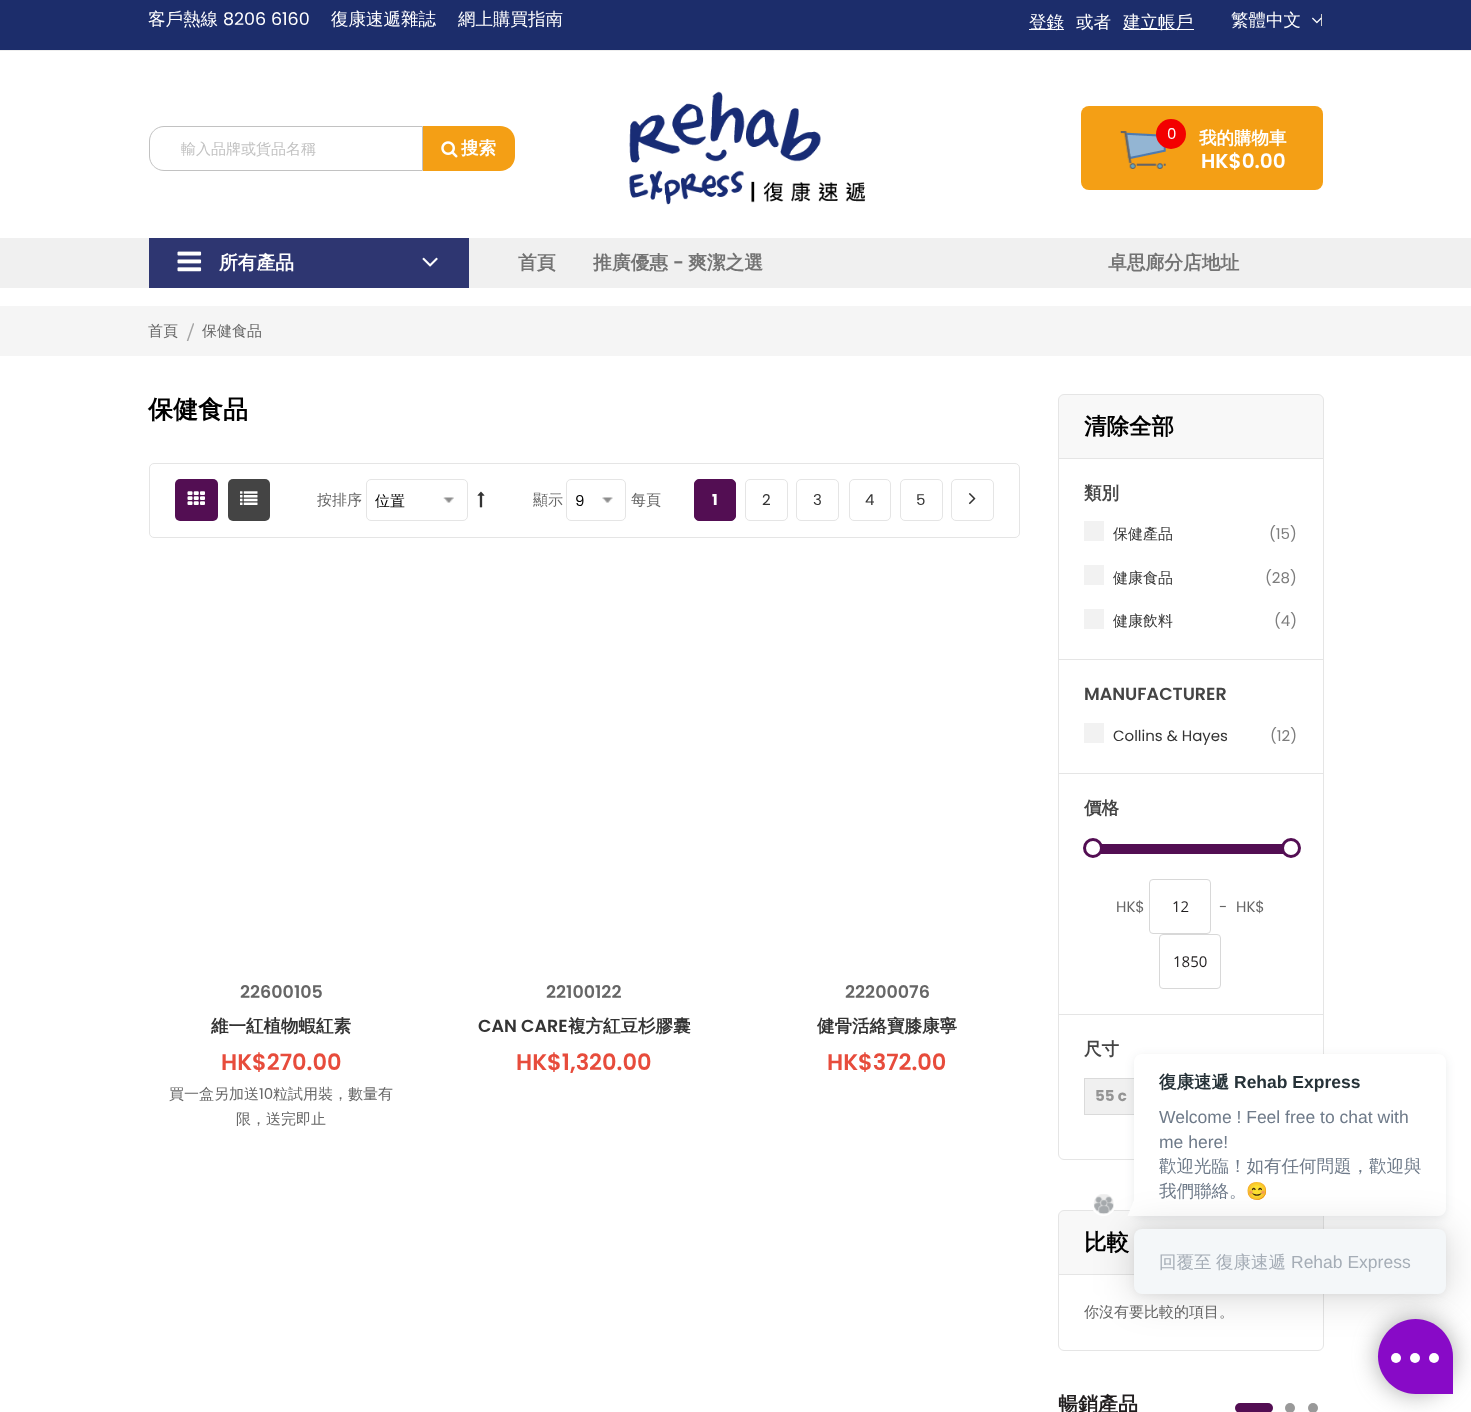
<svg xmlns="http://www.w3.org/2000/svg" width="1471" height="1412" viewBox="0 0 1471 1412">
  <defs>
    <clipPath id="clip1"><rect x="186" y="319" width="8" height="22"/></clipPath>
  </defs>
  <rect width="100%" height="100%" fill="rgb(255,255,255)"/>
  <rect x="0" y="0" width="1471" height="50" fill="rgb(28,45,107)"/>
  <rect x="0" y="50" width="1471" height="1" fill="rgb(238,238,238)"/>
  <text x="148" y="25" font-family="WenQuanYi Zen Hei" font-size="17.5" font-weight="500" fill="rgb(255,255,255)">客戶熱線</text>
  <text x="223" y="25" font-family="Poppins" font-size="17.5" fill="rgb(255,255,255)">8206 6160</text>
  <g font-family="WenQuanYi Zen Hei" font-size="17.5" font-weight="500" fill="rgb(255,255,255)">
    <text x="331" y="25">復康速遞雜誌</text>
    <text x="458" y="25">網上購買指南</text>
  </g>
  <rect x="1029" y="29" width="35" height="1" fill="rgb(255,255,255)"/>
  <g font-family="WenQuanYi Zen Hei" font-size="17.5" font-weight="500" fill="rgb(255,255,255)">
    <text x="1029" y="28">登錄</text>
    <text x="1076" y="28">或者</text>
  </g>
  <rect x="1124" y="29" width="70" height="1" fill="rgb(255,255,255)"/>
  <g font-family="WenQuanYi Zen Hei" font-size="17.5" font-weight="500" fill="rgb(255,255,255)">
    <text x="1123" y="28">建立帳戶</text>
    <text x="1231" y="26">繁體中文</text>
  </g>
  <rect x="1321" y="14" width="1" height="12" fill="rgb(204,204,204)"/>
  <image x="1312" y="17" width="10" height="7" href="pic1.png"/>
  <path d="M164 126.5H422.5V170.5H164C156 170.5 149.5 164 149.5 156V141C149.5 133 156 126.5 164 126.5Z" fill="none" stroke="rgb(194,194,194)"/>
  <text x="181" y="154" font-family="WenQuanYi Zen Hei" font-size="15" font-weight="500" fill="rgb(194,194,194)">輸入品牌或貨品名稱</text>
  <path d="M423 126H500C508.5 126 515 132.5 515 141V156C515 164.5 508.5 171 500 171H423Z" fill="rgb(244,159,21)"/>
  <image x="441" y="141" width="17" height="17" href="pic2.png"/>
  <text x="461" y="154" font-family="WenQuanYi Zen Hei" font-size="17.5" font-weight="bold" fill="rgb(255,255,255)">搜索</text>
  <image x="629" y="91" width="237" height="114" href="pic3.png"/>
  <rect x="1081" y="106" width="242" height="84" rx="8" fill="rgb(244,159,21)"/>
  <image x="1120" y="131" width="46" height="38" href="pic4.png"/>
  <circle cx="1171" cy="134" r="15" fill="rgb(243,0,0)"/>
  <text x="1167" y="139" font-family="Poppins" font-size="15" fill="rgb(255,255,255)">0</text>
  <text x="1201" y="168" font-family="Poppins" font-size="20" font-weight="600" fill="rgb(255,255,255)">HK$0.00</text>
  <text x="1199" y="144" font-family="WenQuanYi Zen Hei" font-size="17.5" font-weight="bold" fill="rgb(255,255,255)">我的購物車</text>
  <rect x="0" y="238" width="1471" height="50" fill="rgb(240,240,240)"/>
  <rect x="149" y="238" width="320" height="50" fill="rgb(46,54,113)"/>
  <image x="177" y="251" width="25" height="21" href="pic5.png"/>
  <text x="219" y="269" font-family="WenQuanYi Zen Hei" font-size="18.75" font-weight="bold" fill="rgb(255,255,255)">所有產品</text>
  <image x="422" y="257" width="16" height="10" href="pic6.png"/>
  <g font-family="WenQuanYi Zen Hei" font-size="18.75" font-weight="bold" fill="rgb(115,115,115)">
    <text x="518" y="269">首頁</text>
    <text x="593" y="269">推廣優惠</text>
  </g>
  <text x="673" y="269" font-family="Poppins" font-size="18.75" font-weight="600" fill="rgb(115,115,115)">-</text>
  <g font-family="WenQuanYi Zen Hei" font-size="18.75" font-weight="bold" fill="rgb(115,115,115)">
    <text x="688" y="269">爽潔之選</text>
    <text x="1108" y="269">卓思廊分店地址</text>
  </g>
  <rect x="0" y="306" width="1471" height="50" fill="rgb(245,245,245)"/>
  <text x="148" y="336" font-family="WenQuanYi Zen Hei" font-size="15" font-weight="500" fill="rgb(102,102,102)">首頁</text>
  <g clip-path="url(#clip1)">
    <text x="186" y="343" font-family="Liberation Serif" font-size="30" fill="rgb(163,163,163)">/</text>
  </g>
  <text x="202" y="336" font-family="WenQuanYi Zen Hei" font-size="15" font-weight="500" fill="rgb(102,102,102)">保健食品</text>
  <text x="148" y="418" font-family="WenQuanYi Zen Hei" font-size="25" font-weight="bold" fill="rgb(0,0,0)">保健食品</text>
  <rect x="149.5" y="463.5" width="870" height="74" rx="4.5" fill="none" stroke="rgb(229,229,229)"/>
  <rect x="175" y="479" width="43" height="42" rx="5" fill="rgb(83,14,83)"/>
  <image x="187" y="491" width="18" height="14" href="pic7.png"/>
  <rect x="228" y="479" width="42" height="42" rx="5" fill="rgb(68,68,68)"/>
  <image x="240" y="491" width="18" height="14" href="pic8.png"/>
  <text x="317" y="505" font-family="WenQuanYi Zen Hei" font-size="15" font-weight="500" fill="rgb(102,102,102)">按排序</text>
  <image x="443" y="497" width="11" height="6" href="pic9.png"/>
  <rect x="366.5" y="479.5" width="101" height="41" rx="4.5" fill="none" stroke="rgb(229,229,229)"/>
  <text x="375" y="506" font-family="WenQuanYi Zen Hei" font-size="15" font-weight="500" fill="rgb(0,0,0)">位置</text>
  <image x="477" y="491" width="8" height="17" href="pic10.png"/>
  <text x="533" y="505" font-family="WenQuanYi Zen Hei" font-size="15" font-weight="500" fill="rgb(102,102,102)">顯示</text>
  <image x="602" y="497" width="11" height="6" href="pic11.png"/>
  <rect x="566.5" y="479.5" width="59" height="41" rx="4.5" fill="none" stroke="rgb(229,229,229)"/>
  <text x="575" y="506" font-family="Poppins" font-size="15" fill="rgb(0,0,0)">9</text>
  <text x="631" y="505" font-family="WenQuanYi Zen Hei" font-size="15" font-weight="500" fill="rgb(102,102,102)">每頁</text>
  <rect x="694.5" y="479.5" width="41" height="41" rx="4.5" fill="rgb(83,14,83)" stroke="rgb(83,14,83)"/>
  <text x="712" y="505" font-family="Poppins" font-size="15" font-weight="bold" fill="rgb(255,255,255)">1</text>
  <rect x="745.5" y="479.5" width="42" height="41" rx="4.5" fill="none" stroke="rgb(229,229,229)"/>
  <text x="762" y="505" font-family="Poppins" font-size="15" fill="rgb(51,51,51)">2</text>
  <rect x="796.5" y="479.5" width="42" height="41" rx="4.5" fill="none" stroke="rgb(229,229,229)"/>
  <text x="813" y="505" font-family="Poppins" font-size="15" fill="rgb(51,51,51)">3</text>
  <rect x="849.5" y="479.5" width="41" height="41" rx="4.5" fill="none" stroke="rgb(229,229,229)"/>
  <text x="865" y="505" font-family="Poppins" font-size="15" fill="rgb(51,51,51)">4</text>
  <rect x="900.5" y="479.5" width="42" height="41" rx="4.5" fill="none" stroke="rgb(229,229,229)"/>
  <text x="916" y="505" font-family="Poppins" font-size="15" fill="rgb(51,51,51)">5</text>
  <rect x="951.5" y="479.5" width="42" height="41" rx="4.5" fill="none" stroke="rgb(229,229,229)"/>
  <image x="968" y="493" width="8" height="12" href="pic12.png"/>
  <text x="240" y="998" font-family="Poppins" font-size="17.5" font-weight="600" fill="rgb(102,102,102)">22600105</text>
  <text x="211" y="1032" font-family="WenQuanYi Zen Hei" font-size="17.5" font-weight="bold" fill="rgb(51,51,51)">維一紅植物蝦紅素</text>
  <text x="221" y="1070" font-family="Poppins" font-size="22.5" font-weight="600" fill="rgb(231,76,60)">HK$270.00</text>
  <text x="169" y="1099" font-family="WenQuanYi Zen Hei" font-size="15" font-weight="500" fill="rgb(102,102,102)">買一盒另加送</text>
  <text x="259" y="1099" font-family="Poppins" font-size="15" fill="rgb(102,102,102)">10</text>
  <g font-family="WenQuanYi Zen Hei" font-size="15" font-weight="500" fill="rgb(102,102,102)">
    <text x="273" y="1099">粒試用裝，數量有</text>
    <text x="236" y="1124">限，送完即止</text>
  </g>
  <text x="546" y="998" font-family="Poppins" font-size="17.5" font-weight="600" fill="rgb(102,102,102)">22100122</text>
  <text x="478" y="1032" font-family="Poppins" font-size="17.5" font-weight="600" fill="rgb(51,51,51)">CAN CARE</text>
  <text x="568" y="1032" font-family="WenQuanYi Zen Hei" font-size="17.5" font-weight="bold" fill="rgb(51,51,51)">複方紅豆杉膠囊</text>
  <text x="516" y="1070" font-family="Poppins" font-size="22.5" font-weight="600" fill="rgb(231,76,60)">HK$1,320.00</text>
  <text x="845" y="998" font-family="Poppins" font-size="17.5" font-weight="600" fill="rgb(102,102,102)">22200076</text>
  <text x="817" y="1032" font-family="WenQuanYi Zen Hei" font-size="17.5" font-weight="bold" fill="rgb(51,51,51)">健骨活絡寶膝康寧</text>
  <text x="827" y="1070" font-family="Poppins" font-size="22.5" font-weight="600" fill="rgb(231,76,60)">HK$372.00</text>
  <path d="M1064 394.5H1318C1321 394.5 1323.5 397 1323.5 400V458.5H1058.5V400C1058.5 397 1061 394.5 1064 394.5Z" fill="rgb(248,248,248)" stroke="rgb(229,229,229)"/>
  <text x="1084" y="434" font-family="WenQuanYi Zen Hei" font-size="22.5" font-weight="bold" fill="rgb(0,0,0)">清除全部</text>
  <path d="M1058.5 458.5H1323.5V1154C1323.5 1157 1321 1159.5 1318 1159.5H1064C1061 1159.5 1058.5 1157 1058.5 1154Z" fill="none" stroke="rgb(229,229,229)"/>
  <text x="1084" y="499" font-family="WenQuanYi Zen Hei" font-size="17.5" font-weight="bold" fill="rgb(68,68,68)">類別</text>
  <rect x="1059" y="659" width="264" height="1" fill="rgb(229,229,229)"/>
  <rect x="1084" y="521" width="20" height="20" fill="rgb(242,242,242)"/>
  <text x="1113" y="539" font-family="WenQuanYi Zen Hei" font-size="15" font-weight="500" fill="rgb(51,51,51)">保健產品</text>
  <text x="1269" y="539" font-family="Poppins" font-size="15" fill="rgb(125,125,125)">(15)</text>
  <rect x="1084" y="565" width="20" height="20" fill="rgb(242,242,242)"/>
  <text x="1113" y="583" font-family="WenQuanYi Zen Hei" font-size="15" font-weight="500" fill="rgb(51,51,51)">健康食品</text>
  <text x="1265" y="583" font-family="Poppins" font-size="15" fill="rgb(125,125,125)">(28)</text>
  <rect x="1084" y="609" width="20" height="20" fill="rgb(242,242,242)"/>
  <text x="1113" y="626" font-family="WenQuanYi Zen Hei" font-size="15" font-weight="500" fill="rgb(51,51,51)">健康飲料</text>
  <text x="1274" y="626" font-family="Poppins" font-size="15" fill="rgb(125,125,125)">(4)</text>
  <text x="1084" y="700" font-family="Poppins" font-size="17.5" font-weight="600" fill="rgb(68,68,68)">MANUFACTURER</text>
  <rect x="1059" y="773" width="264" height="1" fill="rgb(229,229,229)"/>
  <rect x="1084" y="723" width="20" height="20" fill="rgb(242,242,242)"/>
  <text x="1113" y="741" font-family="Poppins" font-size="15" fill="rgb(51,51,51)">Collins &amp; Hayes</text>
  <text x="1270" y="741" font-family="Poppins" font-size="15" fill="rgb(125,125,125)">(12)</text>
  <text x="1084" y="814" font-family="WenQuanYi Zen Hei" font-size="17.5" font-weight="bold" fill="rgb(68,68,68)">價格</text>
  <rect x="1059" y="1014" width="264" height="1" fill="rgb(229,229,229)"/>
  <rect x="1101" y="844" width="182" height="10" fill="rgb(83,14,83)"/>
  <circle cx="1093" cy="848" r="8.5" fill="rgb(255,255,255)" stroke="rgb(83,14,83)" stroke-width="3"/>
  <circle cx="1291" cy="848" r="8.5" fill="rgb(255,255,255)" stroke="rgb(83,14,83)" stroke-width="3"/>
  <text x="1116" y="912" font-family="Poppins" font-size="15" fill="rgb(102,102,102)">HK$</text>
  <rect x="1149.5" y="879.5" width="61" height="54" rx="3.5" fill="none" stroke="rgb(216,216,216)"/>
  <text x="1172" y="912" font-family="Open Sans" font-size="15" fill="rgb(33,30,31)">12</text>
  <g font-family="Poppins" font-size="15" fill="rgb(102,102,102)">
    <text x="1219" y="912">-</text>
    <text x="1236" y="912">HK$</text>
  </g>
  <rect x="1159.5" y="934.5" width="61" height="54" rx="3.5" fill="none" stroke="rgb(216,216,216)"/>
  <text x="1173" y="967" font-family="Open Sans" font-size="15" fill="rgb(33,30,31)">1850</text>
  <text x="1084" y="1055" font-family="WenQuanYi Zen Hei" font-size="17.5" font-weight="bold" fill="rgb(68,68,68)">尺寸</text>
  <rect x="1085" y="1079" width="49" height="35" fill="rgb(240,240,240)"/>
  <rect x="1084.5" y="1078.5" width="69" height="36" fill="none" stroke="rgb(218,218,218)"/>
  <text x="1095" y="1101" font-family="Poppins" font-size="15" font-weight="bold" fill="rgb(148,148,148)">55 c</text>
  <path d="M1064 1210.5H1318C1321 1210.5 1323.5 1213 1323.5 1216V1274.5H1058.5V1216C1058.5 1213 1061 1210.5 1064 1210.5Z" fill="rgb(248,248,248)" stroke="rgb(229,229,229)"/>
  <text x="1084" y="1250" font-family="WenQuanYi Zen Hei" font-size="22.5" font-weight="bold" fill="rgb(0,0,0)">比較</text>
  <path d="M1058.5 1274.5H1323.5V1345C1323.5 1348 1321 1350.5 1318 1350.5H1064C1061 1350.5 1058.5 1348 1058.5 1345Z" fill="none" stroke="rgb(229,229,229)"/>
  <text x="1084" y="1317" font-family="WenQuanYi Zen Hei" font-size="15" font-weight="500" fill="rgb(102,102,102)">你沒有要比較的項目。</text>
  <text x="1058" y="1411" font-family="WenQuanYi Zen Hei" font-size="20" font-weight="bold" fill="rgb(33,30,31)">暢銷產品</text>
  <rect x="1235" y="1403" width="38" height="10" rx="5" fill="rgb(83,14,83)"/>
  <circle cx="1290" cy="1408" r="5" fill="rgb(153,153,153)"/>
  <circle cx="1313" cy="1408" r="5" fill="rgb(153,153,153)"/>
  <rect x="1134" y="1056" width="312" height="163" rx="8" fill="rgba(35,47,53,0.09)" filter="blur(5px)"/>
  <path d="M1142 1054H1438C1442.5 1054 1446 1057.5 1446 1062V1208C1446 1212.5 1442.5 1216 1438 1216H1134V1062C1134 1057.5 1137.5 1054 1142 1054Z" fill="rgb(255,255,255)"/>
  <text x="1159" y="1088" font-family="WenQuanYi Zen Hei" font-size="17.5" font-weight="bold" fill="rgb(38,50,56)">復康速遞</text>
  <text x="1234" y="1088" font-family="Liberation Sans" font-size="17.5" font-weight="bold" fill="rgb(38,50,56)">Rehab Express</text>
  <g font-family="Liberation Sans" font-size="17.5" fill="rgb(110,122,137)">
    <text>
      <tspan x="1159" y="1123">Welcome ! Feel free to chat with</tspan>
      <tspan x="1159" y="1148">me here!</tspan>
    </text>
  </g>
  <g font-family="WenQuanYi Zen Hei" font-size="17.5" font-weight="500" fill="rgb(110,122,137)">
    <text>
      <tspan x="1159" y="1172">歡迎光臨！如有任何問題，歡迎與</tspan>
      <tspan x="1159" y="1197">我們聯絡。</tspan>
    </text>
  </g>
  <text x="1246" y="1197" font-family="Noto Color Emoji" font-size="17.5" fill="rgb(110,122,137)">😊</text>
  <path d="M1134 1216H1127.5L1134 1200Z" fill="rgb(255,255,255)"/>
  <rect x="1134" y="1231" width="312" height="65" rx="8" fill="rgba(0,0,0,0.16)" filter="blur(20px)"/>
  <circle cx="1103.5" cy="1203.5" r="11" fill="none" stroke="rgb(255,255,255)" stroke-width="3"/>
  <image x="1093" y="1194" width="21" height="21" href="pic13.png"/>
  <rect x="1134" y="1230" width="312" height="65" rx="8" fill="rgba(0,0,0,0.06)" filter="blur(4px)"/>
  <rect x="1134" y="1229" width="312" height="65" rx="8" fill="rgb(244,247,249)"/>
  <g font-family="WenQuanYi Zen Hei" font-size="17.5" font-weight="500" fill="rgb(165,173,182)">
    <text x="1159" y="1268">回覆至</text>
    <text x="1216" y="1268">復康速遞</text>
  </g>
  <text x="1291" y="1268" font-family="Liberation Sans" font-size="17.5" fill="rgb(165,173,182)">Rehab Express</text>
  <rect x="1378" y="1319" width="75" height="75" rx="37.5" fill="rgba(119,119,119,0.64)" filter="blur(12.5px)"/>
  <path d="M1415.5 1319C1436 1319 1453 1336 1453 1356.5V1394H1415.5C1395 1394 1378 1377 1378 1356.5C1378 1336 1395 1319 1415.5 1319Z" fill="rgb(136,10,199)"/>
  <circle cx="1396" cy="1358" r="5" fill="rgb(255,255,255)"/>
  <circle cx="1415" cy="1358" r="5" fill="rgb(255,255,255)"/>
  <circle cx="1434" cy="1358" r="5" fill="rgb(255,255,255)"/>
</svg>
